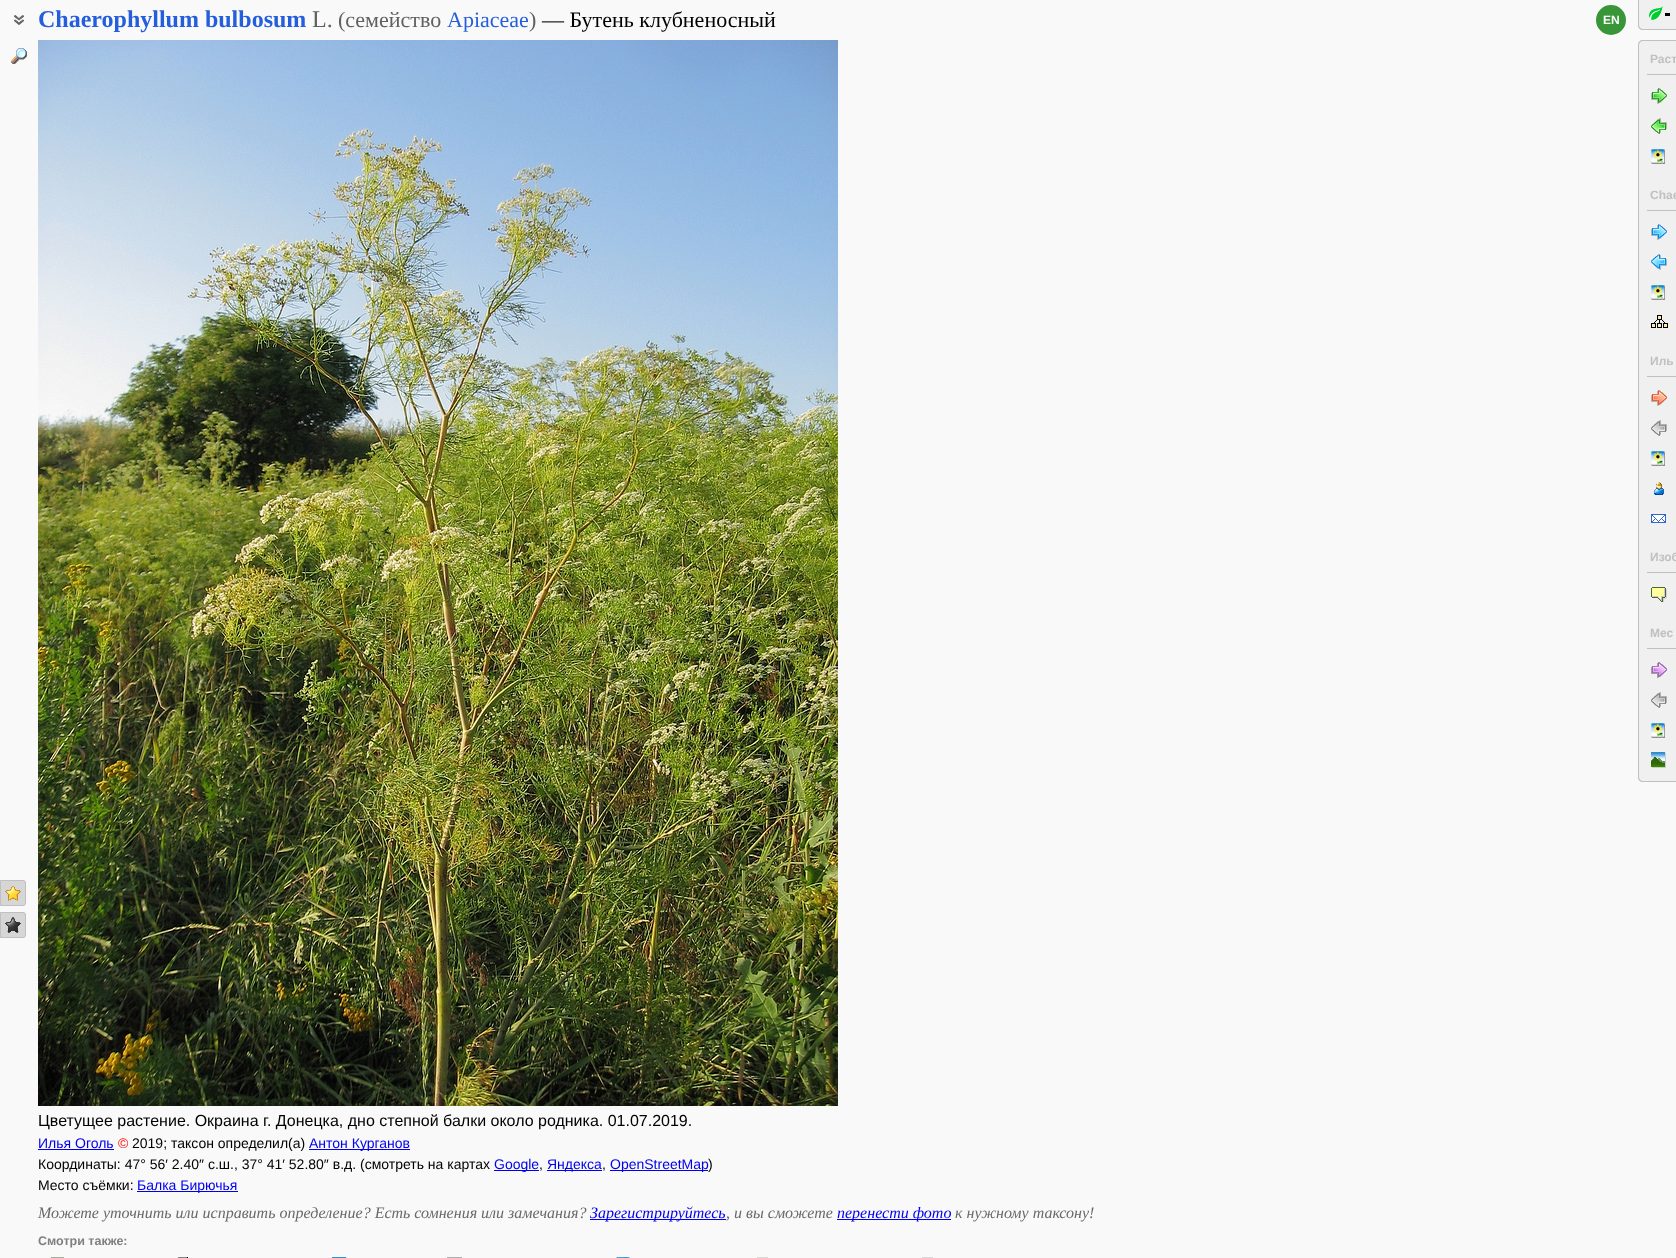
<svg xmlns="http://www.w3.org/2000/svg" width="1676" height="1258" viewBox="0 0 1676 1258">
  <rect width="100%" height="100%" fill="rgb(249,249,249)"/>
  <image x="14" y="15" width="10" height="10" href="pic1.png"/>
  <text x="38" y="27" font-family="Liberation Serif" font-size="24" font-weight="bold" fill="rgb(36,94,220)">Chaerophyllum bulbosum</text>
  <text x="312" y="27" font-family="Liberation Serif" font-size="24" fill="rgb(96,96,96)">L.</text>
  <text x="338" y="27" font-family="Liberation Serif" font-size="22" fill="rgb(96,96,96)">(семейство</text>
  <text x="447" y="27" font-family="Liberation Serif" font-size="22" fill="rgb(36,94,220)">Apiaceae</text>
  <text x="529" y="27" font-family="Liberation Serif" font-size="22" fill="rgb(96,96,96)">)</text>
  <text x="542" y="27" font-family="Liberation Serif" font-size="22" fill="rgb(0,0,0)">— Бутень клубненосный</text>
  <circle cx="1611" cy="20" r="15" fill="rgb(56,150,56)"/>
  <text x="1603" y="24" font-family="Liberation Sans" font-size="12" font-weight="bold" fill="rgb(254,254,254)">EN</text>
  <image x="11" y="48" width="16" height="16" href="pic2.png"/>
  <path d="M0 880H23C24.5 880 26 881.5 26 883V903C26 904.5 24.5 906 23 906H0Z" fill="rgb(214,214,214)"/>
  <image x="5" y="886" width="16" height="15" href="pic3.png"/>
  <path d="M.5 880.5H23C24.5 880.5 25.5 881.5 25.5 883V903C25.5 904.5 24.5 905.5 23 905.5H.5Z" fill="none" stroke="rgb(192,192,192)"/>
  <path d="M0 912H23C24.5 912 26 913.5 26 915V935C26 936.5 24.5 938 23 938H0Z" fill="rgb(214,214,214)"/>
  <image x="5" y="917" width="16" height="16" href="pic4.png"/>
  <path d="M.5 912.5H23C24.5 912.5 25.5 913.5 25.5 915V935C25.5 936.5 24.5 937.5 23 937.5H.5Z" fill="none" stroke="rgb(192,192,192)"/>
  <path d="M1638 0H1676V30H1643C1640 30 1638 28 1638 25Z" fill="rgb(240,240,240)"/>
  <image x="1649" y="6" width="14" height="14" href="pic5.png"/>
  <path d="M1638 0H1676V30H1643C1640 30 1638 28 1638 25ZM1639 0H1676V29H1643C1641 29 1639 27 1639 25Z" fill="rgb(192,192,192)" fill-rule="evenodd"/>
  <rect x="1665" y="13" width="5" height="3" fill="rgb(0,0,0)"/>
  <path d="M1643 40H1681V782H1643C1640 782 1638 780 1638 777V45C1638 42 1640 40 1643 40Z" fill="rgb(240,240,240)"/>
  <path d="M1643 40H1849V782H1643C1640 782 1638 780 1638 777V45C1638 42 1640 40 1643 40ZM1643 41H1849V781H1643C1641 781 1639 779 1639 777V45C1639 43 1641 41 1643 41Z" fill="rgb(192,192,192)" fill-rule="evenodd"/>
  <rect x="1647" y="74" width="29" height="1" fill="rgb(192,192,192)"/>
  <text x="1650" y="63" font-family="Liberation Sans" font-size="12" font-weight="bold" fill="rgb(192,192,192)">Раст</text>
  <image x="1651" y="88" width="16" height="16" href="pic6.png"/>
  <image x="1651" y="118" width="16" height="16" href="pic7.png"/>
  <image x="1651" y="149" width="14" height="15" href="pic8.png"/>
  <rect x="1647" y="210" width="29" height="1" fill="rgb(192,192,192)"/>
  <text x="1650" y="199" font-family="Liberation Sans" font-size="12" font-weight="bold" fill="rgb(192,192,192)">Chae</text>
  <image x="1651" y="224" width="16" height="16" href="pic9.png"/>
  <image x="1651" y="254" width="16" height="16" href="pic10.png"/>
  <image x="1651" y="285" width="14" height="15" href="pic8.png"/>
  <image x="1651" y="315" width="17" height="13" href="pic11.png"/>
  <rect x="1647" y="376" width="29" height="1" fill="rgb(192,192,192)"/>
  <text x="1650" y="365" font-family="Liberation Sans" font-size="12" font-weight="bold" fill="rgb(192,192,192)">Иль</text>
  <image x="1651" y="390" width="16" height="16" href="pic12.png"/>
  <image x="1651" y="420" width="16" height="16" href="pic13.png"/>
  <image x="1651" y="451" width="14" height="15" href="pic8.png"/>
  <image x="1654" y="482" width="10" height="13" href="pic14.png"/>
  <image x="1651" y="514" width="15" height="9" href="pic15.png"/>
  <rect x="1647" y="572" width="29" height="1" fill="rgb(192,192,192)"/>
  <text x="1650" y="561" font-family="Liberation Sans" font-size="12" font-weight="bold" fill="rgb(192,192,192)">Изоб</text>
  <image x="1651" y="587" width="16" height="15" href="pic16.png"/>
  <rect x="1647" y="648" width="29" height="1" fill="rgb(192,192,192)"/>
  <text x="1650" y="637" font-family="Liberation Sans" font-size="12" font-weight="bold" fill="rgb(192,192,192)">Мес</text>
  <image x="1651" y="662" width="16" height="16" href="pic17.png"/>
  <image x="1651" y="692" width="16" height="16" href="pic13.png"/>
  <image x="1651" y="723" width="14" height="15" href="pic8.png"/>
  <image x="1651" y="752" width="15" height="16" href="pic18.png"/>
  <image x="38" y="40" width="800" height="1066" href="pic19.png"/>
  <text x="38" y="1126" font-family="Liberation Sans" font-size="16" fill="rgb(0,0,0)">Цветущее растение. Окраина г. Донецка, дно степной балки около родника. 01.07.2019.</text>
  <text x="38" y="1148" font-family="Liberation Sans" font-size="14" fill="rgb(0,0,238)">Илья Оголь</text>
  <rect x="38" y="1149" width="76" height="1" fill="rgb(0,0,238)"/>
  <text x="118" y="1148" font-family="Liberation Sans" font-size="14" fill="rgb(255,0,0)">©</text>
  <text x="132" y="1148" font-family="Liberation Sans" font-size="14" fill="rgb(0,0,0)">2019; таксон определил(а)</text>
  <rect x="309" y="1149" width="101" height="1" fill="rgb(0,0,238)"/>
  <text x="309" y="1148" font-family="Liberation Sans" font-size="14" fill="rgb(0,0,238)">Антон Курганов</text>
  <text x="38" y="1169" font-family="Liberation Sans" font-size="14" fill="rgb(0,0,0)">Координаты: 47° 56′ 2.40″ с.ш., 37° 41′ 52.80″ в.д. (смотреть на картах</text>
  <rect x="494" y="1170" width="45" height="1" fill="rgb(0,0,238)"/>
  <text x="494" y="1169" font-family="Liberation Sans" font-size="14" fill="rgb(0,0,238)">Google</text>
  <text x="539" y="1169" font-family="Liberation Sans" font-size="14" fill="rgb(0,0,0)">,</text>
  <rect x="547" y="1170" width="55" height="1" fill="rgb(0,0,238)"/>
  <text x="547" y="1169" font-family="Liberation Sans" font-size="14" fill="rgb(0,0,238)">Яндекса</text>
  <text x="602" y="1169" font-family="Liberation Sans" font-size="14" fill="rgb(0,0,0)">,</text>
  <rect x="610" y="1170" width="98" height="1" fill="rgb(0,0,238)"/>
  <text x="610" y="1169" font-family="Liberation Sans" font-size="14" fill="rgb(0,0,238)">OpenStreetMap</text>
  <g font-family="Liberation Sans" font-size="14" fill="rgb(0,0,0)">
    <text x="708" y="1169">)</text>
    <text x="38" y="1190">Место съёмки:</text>
  </g>
  <rect x="137" y="1191" width="101" height="1" fill="rgb(0,0,238)"/>
  <text x="137" y="1190" font-family="Liberation Sans" font-size="14" fill="rgb(0,0,238)">Балка Бирючья</text>
  <text x="38" y="1218" font-family="Liberation Serif" font-size="16" font-style="italic" fill="rgb(105,105,105)">Можете уточнить или исправить определение? Есть сомнения или замечания?</text>
  <rect x="590" y="1219" width="136" height="1" fill="rgb(0,0,238)"/>
  <text x="590" y="1218" font-family="Liberation Serif" font-size="16" font-style="italic" fill="rgb(0,0,238)">Зарегистрируйтесь</text>
  <text x="726" y="1218" font-family="Liberation Serif" font-size="16" font-style="italic" fill="rgb(105,105,105)">, и вы сможете</text>
  <rect x="837" y="1219" width="114" height="1" fill="rgb(0,0,238)"/>
  <text x="837" y="1218" font-family="Liberation Serif" font-size="16" font-style="italic" fill="rgb(0,0,238)">перенести фото</text>
  <text x="955" y="1218" font-family="Liberation Serif" font-size="16" font-style="italic" fill="rgb(105,105,105)">к нужному таксону!</text>
  <text x="38" y="1245" font-family="Liberation Sans" font-size="12.5" font-weight="bold" fill="rgb(128,128,128)">Смотри также:</text>
  <rect x="51" y="1257" width="13" height="1" fill="rgb(163,176,151)"/>
  <image x="178" y="1257" width="10" height="1" href="pic20.png"/>
  <image x="332" y="1257" width="15" height="1" href="pic21.png"/>
  <rect x="447" y="1257" width="15" height="1" fill="rgb(176,176,176)"/>
  <image x="616" y="1257" width="14" height="1" href="pic22.png"/>
  <image x="757" y="1257" width="11" height="1" href="pic23.png"/>
  <image x="922" y="1257" width="11" height="1" href="pic23.png"/>
</svg>
